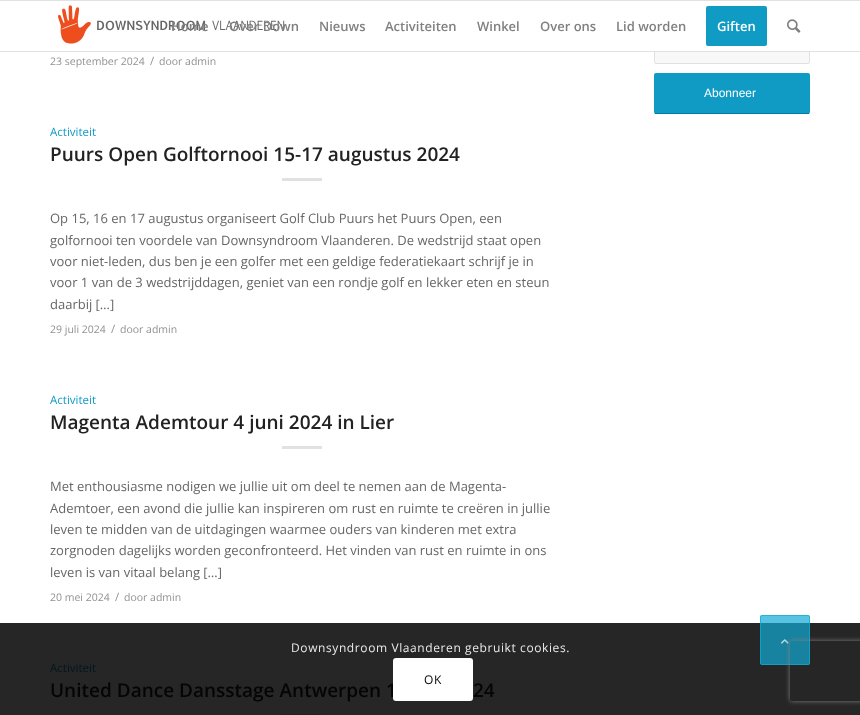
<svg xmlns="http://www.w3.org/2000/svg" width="860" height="715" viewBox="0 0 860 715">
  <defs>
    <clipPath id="clip1"><path d="M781 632H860V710H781ZM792 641H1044C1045 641 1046 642 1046 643V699C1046 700 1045 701 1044 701H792C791 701 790 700 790 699V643C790 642 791 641 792 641Z" clip-rule="evenodd"/></clipPath>
  </defs>
  <rect width="100%" height="100%" fill="rgb(255,255,255)"/>
  <rect x="0" y="623" width="860" height="92" fill="rgb(38,38,38)"/>
  <rect x="0" y="0" width="860" height="1" fill="rgb(225,225,225)"/>
  <rect x="654.5" y="21.5" width="155" height="42" rx="1.5" fill="rgb(248,248,248)" stroke="rgb(225,225,225)"/>
  <rect x="0" y="51" width="860" height="1" fill="rgb(225,225,225)"/>
  <image x="58" y="5" width="227" height="39" href="pic1.png"/>
  <g font-family="Open Sans" font-size="13" font-weight="600" fill="rgb(128,128,128)">
    <text x="171" y="31">Home</text>
    <text x="229" y="31">Over Down</text>
    <text x="319" y="31">Nieuws</text>
    <text x="385" y="31">Activiteiten</text>
    <text x="477" y="31">Winkel</text>
    <text x="540" y="31">Over ons</text>
  </g>
  <rect x="654" y="21" width="156" height="30" fill="rgb(255,255,255)"/>
  <text x="616" y="31" font-family="Open Sans" font-size="13" font-weight="600" fill="rgb(128,128,128)">Lid worden</text>
  <rect x="707" y="7" width="59" height="38" rx="1" fill="rgb(16,155,197)" stroke="rgb(16,155,197)" stroke-width="2"/>
  <text x="717" y="31" font-family="Open Sans" font-size="13" font-weight="600" fill="rgb(255,255,255)">Giften</text>
  <image x="787" y="19" width="14" height="14" href="pic2.png"/>
  <text x="50" y="65" font-family="Open Sans" font-size="10.5" fill="rgb(145,145,145)">23 september 2024</text>
  <text x="150" y="65" font-family="Open Sans" font-size="11.5" fill="rgb(145,145,145)">/</text>
  <text x="159" y="65" font-family="Open Sans" font-size="10.5" fill="rgb(145,145,145)">door admin</text>
  <text x="50" y="136" font-family="Open Sans" font-size="11.5" fill="rgb(16,155,197)">Activiteit</text>
  <text x="50" y="161" font-family="Open Sans" font-size="19" font-weight="600" fill="rgb(34,34,34)">Puurs Open Golftornooi 15-17 augustus 2024</text>
  <rect x="282" y="178" width="40" height="3" fill="rgb(225,225,225)"/>
  <g font-family="Open Sans" font-size="13" fill="rgb(102,102,102)">
    <text>
      <tspan x="50" y="223">Op 15, 16 en 17 augustus organiseert Golf Club Puurs het Puurs Open, een</tspan>
      <tspan x="50" y="245">golfornooi ten voordele van Downsyndroom Vlaanderen. De wedstrijd staat open</tspan>
      <tspan x="50" y="266">voor niet-leden, dus ben je een golfer met een geldige federatiekaart schrijf je in</tspan>
      <tspan x="50" y="287">voor 1 van de 3 wedstrijddagen, geniet van een rondje golf en lekker eten en steun</tspan>
      <tspan x="50" y="309">daarbij […]</tspan>
    </text>
  </g>
  <text x="50" y="333" font-family="Open Sans" font-size="10.5" fill="rgb(145,145,145)">29 juli 2024</text>
  <text x="111" y="333" font-family="Open Sans" font-size="11.5" fill="rgb(145,145,145)">/</text>
  <text x="120" y="333" font-family="Open Sans" font-size="10.5" fill="rgb(145,145,145)">door admin</text>
  <text x="50" y="404" font-family="Open Sans" font-size="11.5" fill="rgb(16,155,197)">Activiteit</text>
  <text x="50" y="429" font-family="Open Sans" font-size="19" font-weight="600" fill="rgb(34,34,34)">Magenta Ademtour 4 juni 2024 in Lier</text>
  <rect x="282" y="446" width="40" height="3" fill="rgb(225,225,225)"/>
  <g font-family="Open Sans" font-size="13" fill="rgb(102,102,102)">
    <text>
      <tspan x="50" y="491">Met enthousiasme nodigen we jullie uit om deel te nemen aan de Magenta-</tspan>
      <tspan x="50" y="513">Ademtoer, een avond die jullie kan inspireren om rust en ruimte te creëren in jullie</tspan>
      <tspan x="50" y="534">leven te midden van de uitdagingen waarmee ouders van kinderen met extra</tspan>
      <tspan x="50" y="555">zorgnoden dagelijks worden geconfronteerd. Het vinden van rust en ruimte in ons</tspan>
      <tspan x="50" y="577">leven is van vitaal belang […]</tspan>
    </text>
  </g>
  <text x="50" y="601" font-family="Open Sans" font-size="10.5" fill="rgb(145,145,145)">20 mei 2024</text>
  <text x="115" y="601" font-family="Open Sans" font-size="11.5" fill="rgb(145,145,145)">/</text>
  <text x="124" y="601" font-family="Open Sans" font-size="10.5" fill="rgb(145,145,145)">door admin</text>
  <text x="50" y="672" font-family="Open Sans" font-size="11.5" fill="rgb(2,23,30)">Activiteit</text>
  <g font-family="Open Sans" font-size="19" font-weight="600" fill="rgb(5,5,5)">
    <text x="50" y="697">United Dance Dansstage Antwerpen 1</text>
    <text x="473" y="697">24</text>
  </g>
  <rect x="282" y="714" width="40" height="1" fill="rgb(34,34,34)"/>
  <rect x="654" y="73" width="156" height="41" rx="2" fill="rgb(16,155,197)"/>
  <rect x="655" y="113" width="154" height="1" fill="rgb(0,121,163)"/>
  <text x="704" y="97" font-family="Liberation Sans" font-size="12" fill="rgb(255,255,255)">Abonneer</text>
  <rect x="760" y="615" width="50" height="50" rx="2" fill="rgba(17,171,214,0.7)"/>
  <rect x="760.5" y="615.5" width="49" height="49" rx="1.5" fill="none" stroke="rgba(17,171,214,0.7)"/>
  <image x="781" y="639" width="8" height="5" href="pic3.png"/>
  <text x="291" y="652" font-family="Open Sans" font-size="12" letter-spacing="0.6" fill="rgb(233,233,233)">Downsyndroom Vlaanderen gebruikt cookies.</text>
  <rect x="393" y="658" width="80" height="43" rx="3" fill="rgb(255,255,255)"/>
  <text x="424" y="684" font-family="Open Sans" font-size="12" letter-spacing="0.6" fill="rgb(5,5,5)">OK</text>
  <g clip-path="url(#clip1)">
    <rect x="790" y="641" width="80" height="60" rx="2" fill="rgb(128,128,128)" filter="blur(2.5px)"/>
  </g>
</svg>
